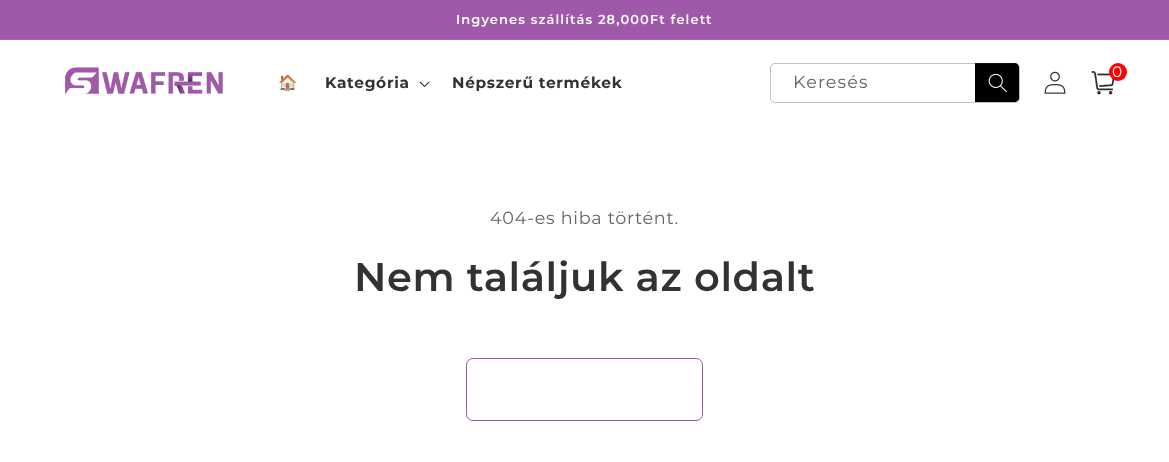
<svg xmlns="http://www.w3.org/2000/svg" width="1169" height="462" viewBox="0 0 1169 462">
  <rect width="100%" height="100%" fill="rgb(255,255,255)"/>
  <rect x="0" y="0" width="1169" height="39" fill="rgb(158,89,168)"/>
  <rect x="0" y="39" width="1169" height="1" fill="rgb(166,102,175)"/>
  <text x="456" y="24" font-family="Montserrat" font-size="13" font-weight="600" letter-spacing="1.1" fill="rgb(255,255,255)">Ingyenes szállítás 28,000Ft felett</text>
  <image x="65" y="67" width="158" height="27" href="pic1.png"/>
  <text x="278" y="88" font-family="Noto Color Emoji" font-size="15.4" font-weight="bold" letter-spacing="0.7" fill="rgb(50,50,50)">🏠</text>
  <text x="325" y="88" font-family="Montserrat" font-size="15.4" font-weight="bold" letter-spacing="0.7" fill="rgb(50,50,50)">Kategória</text>
  <image x="419" y="81" width="11" height="6" href="pic2.png"/>
  <text x="452" y="88" font-family="Montserrat" font-size="15.4" font-weight="bold" letter-spacing="0.7" fill="rgb(50,50,50)">Népszerű termékek</text>
  <path d="M975 63H1015C1017 63 1019 65 1019 67V98C1019 100 1017 102 1015 102H975Z" fill="rgb(0,0,0)"/>
  <image x="988" y="73" width="19" height="19" href="pic3.png"/>
  <rect x="770.5" y="63.5" width="249" height="39" rx="4.5" fill="none" stroke="rgba(50,50,50,0.3)"/>
  <text x="793" y="88" font-family="Montserrat" font-size="17.6" letter-spacing="1.1" fill="rgb(101,101,101)">Keresés</text>
  <image x="1044" y="71" width="22" height="23" href="pic4.png"/>
  <image x="1091" y="71" width="24" height="24" href="pic5.png"/>
  <circle cx="1118" cy="72" r="9" fill="rgb(255,0,0)"/>
  <text x="1112" y="77" font-family="Montserrat" font-size="15.4" letter-spacing="0.7" fill="rgb(255,255,255)">0</text>
  <text x="490" y="224" font-family="Montserrat" font-size="17.6" letter-spacing="0.7" fill="rgb(101,101,101)">404-es hiba történt.</text>
  <text x="354" y="291" font-family="Montserrat" font-size="40" font-weight="600" letter-spacing="0.6" fill="rgb(50,50,50)">Nem találjuk az oldalt</text>
  <rect x="466.5" y="358.5" width="236" height="62" rx="6.5" fill="none" stroke="rgb(158,89,168)"/>
</svg>
